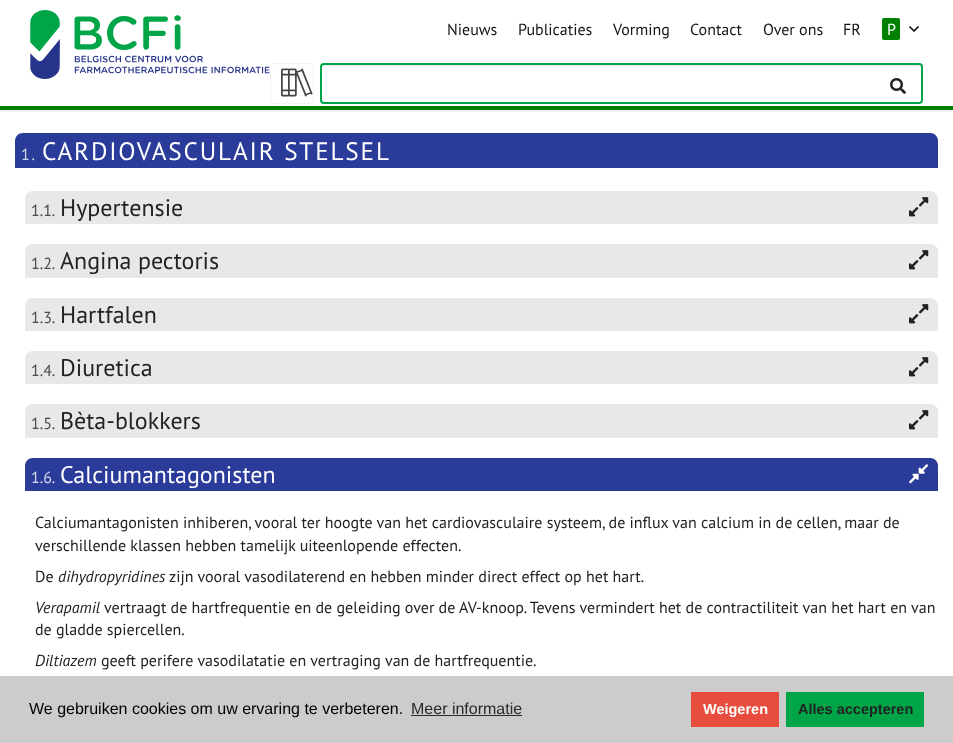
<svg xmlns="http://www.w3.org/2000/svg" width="953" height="743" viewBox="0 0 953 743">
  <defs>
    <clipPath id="clip1"><rect x="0" y="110" width="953" height="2"/></clipPath>
  </defs>
  <rect width="100%" height="100%" fill="rgb(255,255,255)"/>
  <g clip-path="url(#clip1)">
    <rect x="0" y="1" width="953" height="110" fill="rgba(0,0,0,0.12)" filter="blur(1.5px)"/>
  </g>
  <rect x="0" y="106" width="953" height="4" fill="rgb(0,128,0)"/>
  <image x="30" y="10" width="240" height="69" href="pic1.png"/>
  <g font-family="PT Sans" font-size="16" fill="rgb(20,22,23)">
    <text x="447" y="35">Nieuws</text>
    <text x="518" y="35">Publicaties</text>
    <text x="613" y="35">Vorming</text>
    <text x="690" y="35">Contact</text>
    <text x="763" y="35">Over ons</text>
    <text x="843" y="35">FR</text>
  </g>
  <rect x="882" y="18" width="18" height="22" rx="2" fill="rgb(0,128,0)"/>
  <text x="887" y="35" font-family="PT Sans" font-size="16" fill="rgb(255,255,255)">P</text>
  <image x="909" y="26" width="10" height="6" href="pic2.png"/>
  <rect x="270.5" y="63.5" width="43" height="40" rx="3.5" fill="none" stroke="rgb(242,243,245)"/>
  <image x="281" y="68" width="32" height="29" href="pic3.png"/>
  <path d="M324 66H919C920 66 921 67 921 68C921 67 921 65 919 65H324L322 66V68C322 67 323 66 324 66Z" fill="rgb(236,236,236)"/>
  <rect x="321" y="64" width="601" height="39" rx="3" fill="none" stroke="rgb(0,165,71)" stroke-width="2"/>
  <image x="890" y="78" width="16" height="16" href="pic4.png"/>
  <path d="M23 133H930C934.5 133 938 136.5 938 141V168H15V141C15 136.5 18.5 133 23 133Z" fill="rgb(42,59,153)"/>
  <text x="21" y="160" font-family="PT Sans" font-size="16" letter-spacing="1.8" fill="rgb(212,216,235)">1.</text>
  <text x="42" y="160" font-family="PT Sans" font-size="25.25" letter-spacing="1.8" fill="rgb(255,255,255)">CARDIOVASCULAIR STELSEL</text>
  <path d="M33 191H930C934.5 191 938 194.5 938 199V224H25V199C25 194.5 28.5 191 33 191Z" fill="rgb(232,232,232)"/>
  <text x="31" y="216" font-family="PT Sans" font-size="16" fill="rgb(74,74,74)">1.1.</text>
  <text x="60" y="216" font-family="PT Sans" font-size="24" fill="rgb(34,34,34)">Hypertensie</text>
  <image x="909" y="197" width="20" height="20" href="pic5.png"/>
  <path d="M33 244H930C934.5 244 938 247.5 938 252V278H25V252C25 247.5 28.5 244 33 244Z" fill="rgb(232,232,232)"/>
  <text x="31" y="269" font-family="PT Sans" font-size="16" fill="rgb(74,74,74)">1.2.</text>
  <text x="60" y="269" font-family="PT Sans" font-size="24" fill="rgb(34,34,34)">Angina pectoris</text>
  <image x="909" y="250" width="20" height="20" href="pic5.png"/>
  <path d="M33 298H930C934.5 298 938 301.5 938 306V331H25V306C25 301.5 28.5 298 33 298Z" fill="rgb(232,232,232)"/>
  <text x="31" y="323" font-family="PT Sans" font-size="16" fill="rgb(74,74,74)">1.3.</text>
  <text x="60" y="323" font-family="PT Sans" font-size="24" fill="rgb(34,34,34)">Hartfalen</text>
  <image x="909" y="304" width="20" height="20" href="pic5.png"/>
  <path d="M33 351H930C934.5 351 938 354.5 938 359V384H25V359C25 354.5 28.5 351 33 351Z" fill="rgb(232,232,232)"/>
  <text x="31" y="376" font-family="PT Sans" font-size="16" fill="rgb(74,74,74)">1.4.</text>
  <text x="60" y="376" font-family="PT Sans" font-size="24" fill="rgb(34,34,34)">Diuretica</text>
  <image x="909" y="357" width="20" height="20" href="pic5.png"/>
  <path d="M33 404H930C934.5 404 938 407.5 938 412V438H25V412C25 407.5 28.5 404 33 404Z" fill="rgb(232,232,232)"/>
  <text x="31" y="429" font-family="PT Sans" font-size="16" fill="rgb(74,74,74)">1.5.</text>
  <text x="60" y="429" font-family="PT Sans" font-size="24" fill="rgb(34,34,34)">Bèta-blokkers</text>
  <image x="909" y="410" width="20" height="20" href="pic5.png"/>
  <path d="M33 458H930C934.5 458 938 461.5 938 466V491H25V466C25 461.5 28.5 458 33 458Z" fill="rgb(42,59,153)"/>
  <text x="31" y="483" font-family="PT Sans" font-size="16" fill="rgb(212,216,235)">1.6.</text>
  <text x="60" y="483" font-family="PT Sans" font-size="24" fill="rgb(255,255,255)">Calciumantagonisten</text>
  <image x="909" y="464" width="20" height="20" href="pic6.png"/>
  <g font-family="PT Sans" font-size="16" fill="rgb(34,34,34)">
    <text>
      <tspan x="35" y="528">Calciumantagonisten inhiberen, vooral ter hoogte van het cardiovasculaire systeem, de influx van calcium in de cellen, maar de</tspan>
      <tspan x="35" y="551">verschillende klassen hebben tamelijk uiteenlopende effecten.</tspan>
      <tspan x="35" y="582">De</tspan>
    </text>
  </g>
  <text x="58" y="582" font-family="PT Sans" font-size="16" font-style="italic" fill="rgb(34,34,34)">dihydropyridines</text>
  <text x="169" y="582" font-family="PT Sans" font-size="16" fill="rgb(34,34,34)">zijn vooral vasodilaterend en hebben minder direct effect op het hart.</text>
  <text x="35" y="613" font-family="PT Sans" font-size="16" font-style="italic" fill="rgb(34,34,34)">Verapamil</text>
  <g font-family="PT Sans" font-size="16" fill="rgb(34,34,34)">
    <text x="104" y="613">vertraagt de hartfrequentie en de geleiding over de AV-knoop. Tevens vermindert het de contractiliteit van het hart en van</text>
    <text x="35" y="635">de gladde spiercellen.</text>
  </g>
  <text x="35" y="666" font-family="PT Sans" font-size="16" font-style="italic" fill="rgb(34,34,34)">Diltiazem</text>
  <text x="101" y="666" font-family="PT Sans" font-size="16" fill="rgb(34,34,34)">geeft perifere vasodilatatie en vertraging van de hartfrequentie.</text>
  <rect x="0" y="676" width="953" height="67" fill="rgb(204,204,204)"/>
  <text x="29" y="714" font-family="Liberation Sans" font-size="16" fill="rgb(0,0,0)">We gebruiken cookies om uw ervaring te verbeteren.</text>
  <text x="411" y="714" font-family="Liberation Sans" font-size="16" fill="rgb(41,41,41)">Meer informatie</text>
  <rect x="411" y="715" width="111" height="1" fill="rgb(41,41,41)"/>
  <rect x="691" y="692" width="88" height="35" fill="rgb(231,76,60)"/>
  <text x="703" y="714" font-family="Liberation Sans" font-size="14.5" font-weight="bold" fill="rgb(255,255,255)">Weigeren</text>
  <rect x="786" y="692" width="138" height="35" fill="rgb(0,165,71)"/>
  <text x="798" y="714" font-family="Liberation Sans" font-size="14.5" font-weight="bold" fill="rgb(34,34,34)">Alles accepteren</text>
</svg>
